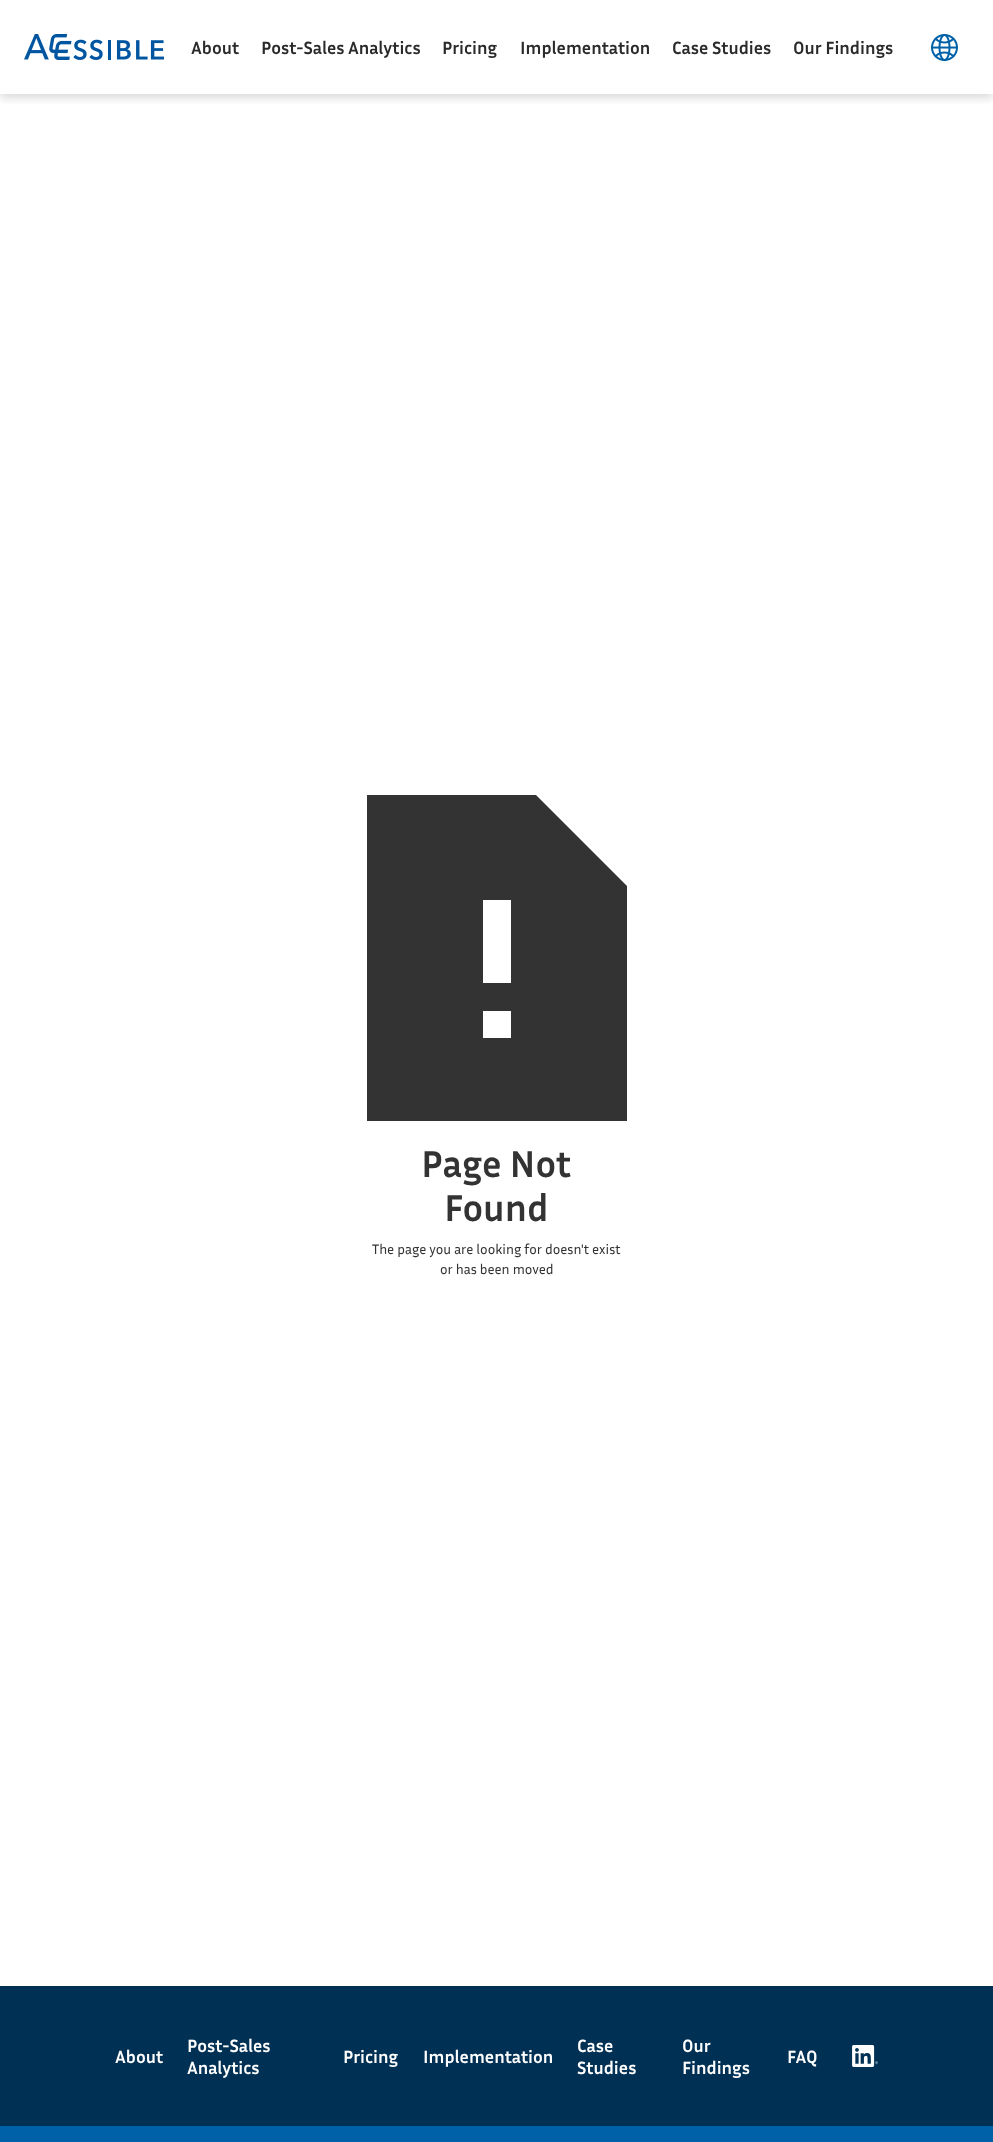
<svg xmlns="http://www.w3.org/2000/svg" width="993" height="2142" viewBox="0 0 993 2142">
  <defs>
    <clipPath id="clip1"><rect x="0" y="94" width="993" height="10"/></clipPath>
  </defs>
  <rect width="100%" height="100%" fill="rgb(255,255,255)"/>
  <g clip-path="url(#clip1)">
    <rect x="0" y="4" width="993" height="94" fill="rgba(0,0,0,0.15)" filter="blur(5px)"/>
  </g>
  <image x="24" y="34" width="140" height="26" href="pic1.png"/>
  <g font-family="Inria Sans" font-size="18" font-weight="bold" fill="rgb(42,42,42)">
    <text x="191" y="54">About</text>
    <text x="261" y="54">Post-Sales Analytics</text>
    <text x="442" y="54">Pricing</text>
    <text x="520" y="54">Implementation</text>
    <text x="672" y="54">Case Studies</text>
    <text x="793" y="54">Our Findings</text>
  </g>
  <image x="931" y="34" width="27" height="27" href="pic2.png"/>
  <path d="M367 795H536L627 886V1121H367ZM483 900H511V983H483ZM483 1011H511V1038H483Z" fill="rgb(51,51,51)" fill-rule="evenodd"/>
  <g font-family="Inria Sans" font-size="38" font-weight="bold" fill="rgb(51,51,51)">
    <text x="421" y="1177">Page Not</text>
    <text x="444" y="1221">Found</text>
  </g>
  <g font-family="Inria Sans" font-size="14" fill="rgb(51,51,51)">
    <text x="372" y="1254">The page you are looking for doesn't exist</text>
    <text x="440" y="1274">or has been moved</text>
  </g>
  <rect x="0" y="1986" width="993" height="140" fill="rgb(0,48,84)"/>
  <g font-family="Inria Sans" font-size="18" font-weight="bold" fill="rgb(255,255,255)">
    <text x="115" y="2063">About</text>
    <text>
      <tspan x="187" y="2052">Post-Sales</tspan>
      <tspan x="187" y="2074">Analytics</tspan>
    </text>
    <text x="343" y="2063">Pricing</text>
    <text x="423" y="2063">Implementation</text>
    <text>
      <tspan x="577" y="2052">Case</tspan>
      <tspan x="577" y="2074">Studies</tspan>
    </text>
    <text>
      <tspan x="682" y="2052">Our</tspan>
      <tspan x="682" y="2074">Findings</tspan>
    </text>
    <text x="787" y="2063">FAQ</text>
  </g>
  <image x="852" y="2045" width="26" height="22" href="pic3.png"/>
  <rect x="0" y="2126" width="993" height="16" fill="rgb(0,96,168)"/>
</svg>
